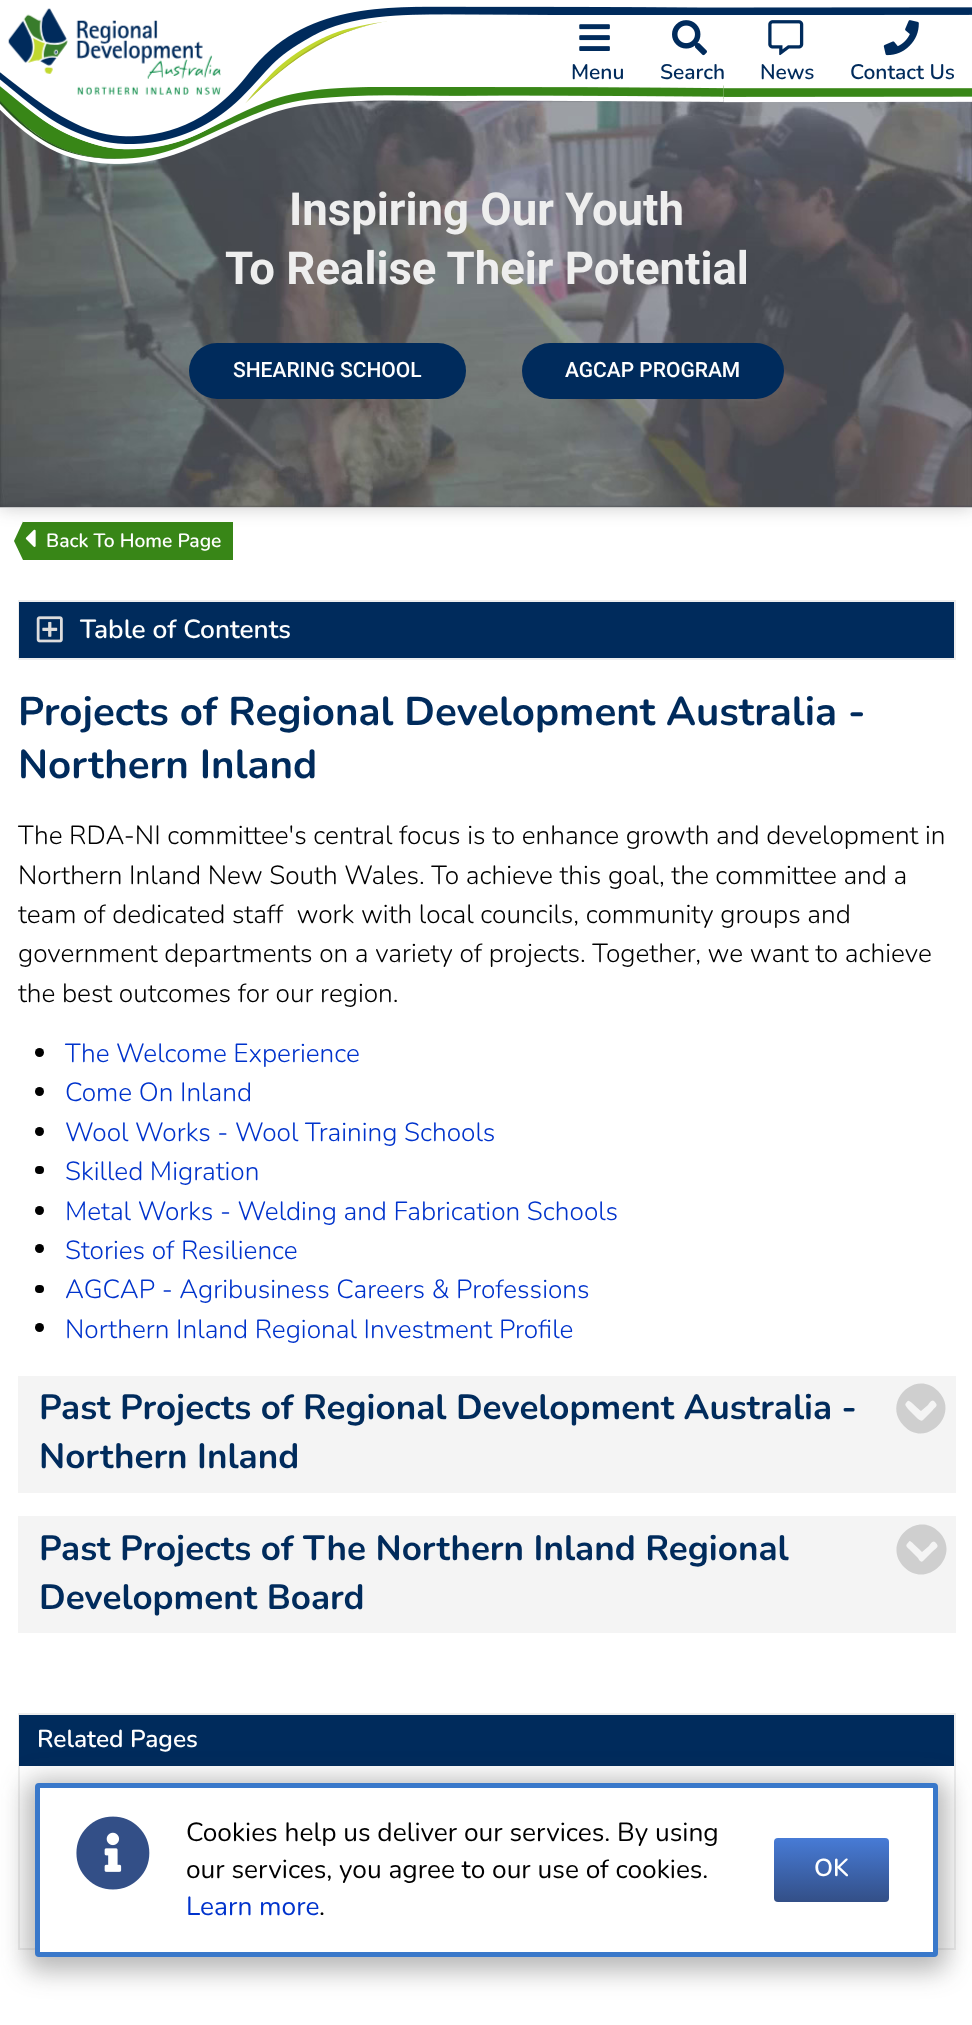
<svg xmlns="http://www.w3.org/2000/svg" width="972" height="2025" viewBox="0 0 972 2025">
  <defs>
    <linearGradient id="g1" gradientUnits="userSpaceOnUse" x1="831" y1="1838" x2="831" y2="1902"><stop offset="0" stop-color="rgb(71,123,214)"/><stop offset="1" stop-color="rgb(51,79,135)"/></linearGradient>
  </defs>
  <rect width="100%" height="100%" fill="rgb(255,255,255)"/>
  <rect x="23" y="522" width="210" height="38" fill="rgb(56,134,23)"/>
  <path d="M23 521.5V560L14 541Z" fill="rgb(56,134,23)"/>
  <image x="25" y="529" width="11" height="18" href="pic8.png"/>
  <rect x="0" y="100" width="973" height="408" fill="rgba(50,50,50,0.25)" filter="blur(9px)"/>
  <rect x="0" y="507" width="972" height="1" fill="rgb(242,242,242)"/>
  <image x="0" y="99" width="972" height="409" href="pic7.png"/>
  <image x="0" y="6" width="972" height="158" href="pic1.png"/>
  <image x="8" y="8" width="213" height="87" href="pic2.png"/>
  <image x="579" y="24" width="31" height="27" href="pic3.png"/>
  <text x="571" y="79" font-family="Nunito" font-size="21" font-weight="600" fill="rgb(0,43,92)">Menu</text>
  <image x="672" y="20" width="35" height="36" href="pic4.png"/>
  <text x="660" y="79" font-family="Nunito" font-size="21" font-weight="600" fill="rgb(0,43,92)">Search</text>
  <image x="768" y="20" width="36" height="36" href="pic5.png"/>
  <text x="760" y="79" font-family="Nunito" font-size="21" font-weight="600" fill="rgb(0,43,92)">News</text>
  <image x="883" y="20" width="36" height="36" href="pic6.png"/>
  <text x="850" y="79" font-family="Nunito" font-size="21" font-weight="600" fill="rgb(0,43,92)">Contact Us</text>
  <g font-family="Roboto" font-size="45.5" font-weight="bold" fill="rgb(238,238,238)">
    <text x="289" y="225">Inspiring Our Youth</text>
    <text x="225" y="284">To Realise Their Potential</text>
  </g>
  <rect x="189" y="343" width="277" height="56" rx="28" fill="rgb(0,43,92)"/>
  <text x="233" y="377" font-family="Roboto" font-size="21" font-weight="500" fill="rgb(255,255,255)">SHEARING SCHOOL</text>
  <rect x="522" y="343" width="262" height="56" rx="28" fill="rgb(0,43,92)"/>
  <text x="565" y="377" font-family="Roboto" font-size="21" font-weight="500" fill="rgb(255,255,255)">AGCAP PROGRAM</text>
  <text x="46" y="547" font-family="Nunito" font-size="19.25" font-weight="600" fill="rgb(255,255,255)">Back To Home Page</text>
  <rect x="19" y="601" width="936" height="58" fill="none" stroke="rgb(238,238,238)" stroke-width="2"/>
  <rect x="19" y="602" width="935" height="56" fill="rgb(0,43,92)"/>
  <image x="36" y="616" width="27" height="27" href="pic9.png"/>
  <text x="80" y="638" font-family="Nunito" font-size="26.25" font-weight="600" fill="rgb(255,255,255)">Table of Contents</text>
  <g font-family="Nunito" font-size="40.25" font-weight="bold" fill="rgb(0,43,92)">
    <text>
      <tspan x="18" y="725">Projects of Regional Development Australia -</tspan>
      <tspan x="18" y="778">Northern Inland</tspan>
    </text>
  </g>
  <g font-family="Nunito" font-size="26.25" font-weight="300" fill="rgb(0,0,0)">
    <text xml:space="preserve"><tspan x="18" y="844">The RDA-NI committee's central focus is to enhance growth and development in</tspan><tspan x="18" y="884">Northern Inland New South Wales. To achieve this goal, the committee and a</tspan><tspan x="18" y="923">team of dedicated staff  work with local councils, community groups and</tspan><tspan x="18" y="962">government departments on a variety of projects. Together, we want to achieve</tspan><tspan x="18" y="1002">the best outcomes for our region.</tspan></text>
  </g>
  <circle cx="39.5" cy="1052.5" r="4.5" fill="rgb(0,0,0)"/>
  <text x="65" y="1062" font-family="Nunito" font-size="26.25" font-weight="300" fill="rgb(0,51,204)">The Welcome Experience</text>
  <circle cx="39.5" cy="1091.5" r="4.5" fill="rgb(0,0,0)"/>
  <text x="65" y="1101" font-family="Nunito" font-size="26.25" font-weight="300" fill="rgb(0,51,204)">Come On Inland</text>
  <circle cx="39.5" cy="1131.5" r="4.5" fill="rgb(0,0,0)"/>
  <text x="65" y="1141" font-family="Nunito" font-size="26.25" font-weight="300" fill="rgb(0,51,204)">Wool Works - Wool Training Schools</text>
  <rect x="35" y="1166" width="9" height="8" rx="4" fill="rgb(0,0,0)"/>
  <text x="65" y="1180" font-family="Nunito" font-size="26.25" font-weight="300" fill="rgb(0,51,204)">Skilled Migration</text>
  <circle cx="39.5" cy="1210.5" r="4.5" fill="rgb(0,0,0)"/>
  <text x="65" y="1220" font-family="Nunito" font-size="26.25" font-weight="300" fill="rgb(0,51,204)">Metal Works - Welding and Fabrication Schools</text>
  <circle cx="39.5" cy="1248.5" r="4.5" fill="rgb(0,0,0)"/>
  <text x="65" y="1259" font-family="Nunito" font-size="26.25" font-weight="300" fill="rgb(0,51,204)">Stories of Resilience</text>
  <rect x="35" y="1285" width="9" height="8" rx="4" fill="rgb(0,0,0)"/>
  <text x="65" y="1298" font-family="Nunito" font-size="26.25" font-weight="300" fill="rgb(0,51,204)">AGCAP - Agribusiness Careers &amp; Professions</text>
  <circle cx="39.5" cy="1327.5" r="4.5" fill="rgb(0,0,0)"/>
  <text x="65" y="1338" font-family="Nunito" font-size="26.25" font-weight="300" fill="rgb(0,51,204)">Northern Inland Regional Investment Profile</text>
  <rect x="18" y="1376" width="938" height="117" fill="rgb(244,244,244)"/>
  <text x="39" y="1419" font-family="Nunito" font-size="35" font-weight="bold" fill="rgb(0,43,92)">Past Projects of Regional Development Australia -</text>
  <path d="M938 1391C961 1414 926 1449 904 1426C881 1403 915 1368 938 1391ZM923 1420L932 1411C936 1406 939 1406 934 1401C932 1399 929 1403 928 1405L921 1411C919 1410 911 1401 909 1401C908 1400 907 1402 906 1403C904 1405 907 1407 908 1409L917 1418C918 1419 921 1422 923 1420Z" fill="rgb(207,207,207)"/>
  <text x="39" y="1468" font-family="Nunito" font-size="35" font-weight="bold" fill="rgb(0,43,92)">Northern Inland</text>
  <rect x="18" y="1516" width="938" height="117" fill="rgb(244,244,244)"/>
  <text x="39" y="1560" font-family="Nunito" font-size="35" font-weight="bold" fill="rgb(0,43,92)">Past Projects of The Northern Inland Regional</text>
  <path d="M939 1532C962 1555 927 1590 904 1567C881 1544 916 1509 939 1532ZM923 1561L932 1552C937 1547 940 1547 935 1542C933 1540 930 1544 929 1546L922 1552C920 1550 912 1542 910 1541C909 1541 908 1543 907 1544C905 1546 908 1548 909 1549L918 1558C919 1560 921 1563 923 1561Z" fill="rgb(207,207,207)"/>
  <text x="39" y="1609" font-family="Nunito" font-size="35" font-weight="bold" fill="rgb(0,43,92)">Development Board</text>
  <rect x="19" y="1714" width="936" height="235" fill="none" stroke="rgb(238,238,238)" stroke-width="2"/>
  <rect x="19" y="1715" width="935" height="51" fill="rgb(0,43,92)"/>
  <text x="37" y="1747" font-family="Nunito" font-size="24.5" font-weight="600" fill="rgb(255,255,255)">Related Pages</text>
  <rect x="26" y="1780" width="921" height="191" rx="12" fill="rgba(50,50,50,0.35)" filter="blur(13px)"/>
  <rect x="37.5" y="1785.5" width="898" height="169" rx="1.5" fill="rgb(255,255,255)" stroke="rgb(57,120,202)" stroke-width="5"/>
  <image x="76" y="1816" width="74" height="74" href="pic10.png"/>
  <g font-family="Nunito" font-size="26.25" fill="rgb(0,0,0)">
    <text>
      <tspan x="186" y="1841">Cookies help us deliver our services. By using</tspan>
      <tspan x="186" y="1878">our services, you agree to our use of cookies.</tspan>
    </text>
  </g>
  <text x="186" y="1915" font-family="Nunito" font-size="26.25" fill="rgb(0,51,204)">Learn more</text>
  <text x="319" y="1915" font-family="Nunito" font-size="26.25" fill="rgb(0,0,0)">.</text>
  <rect x="774" y="1838" width="115" height="64" rx="4" fill="url(#g1)"/>
  <text x="814" y="1876" font-family="Nunito" font-size="24.5" font-weight="600" fill="rgb(255,255,255)">OK</text>
</svg>
